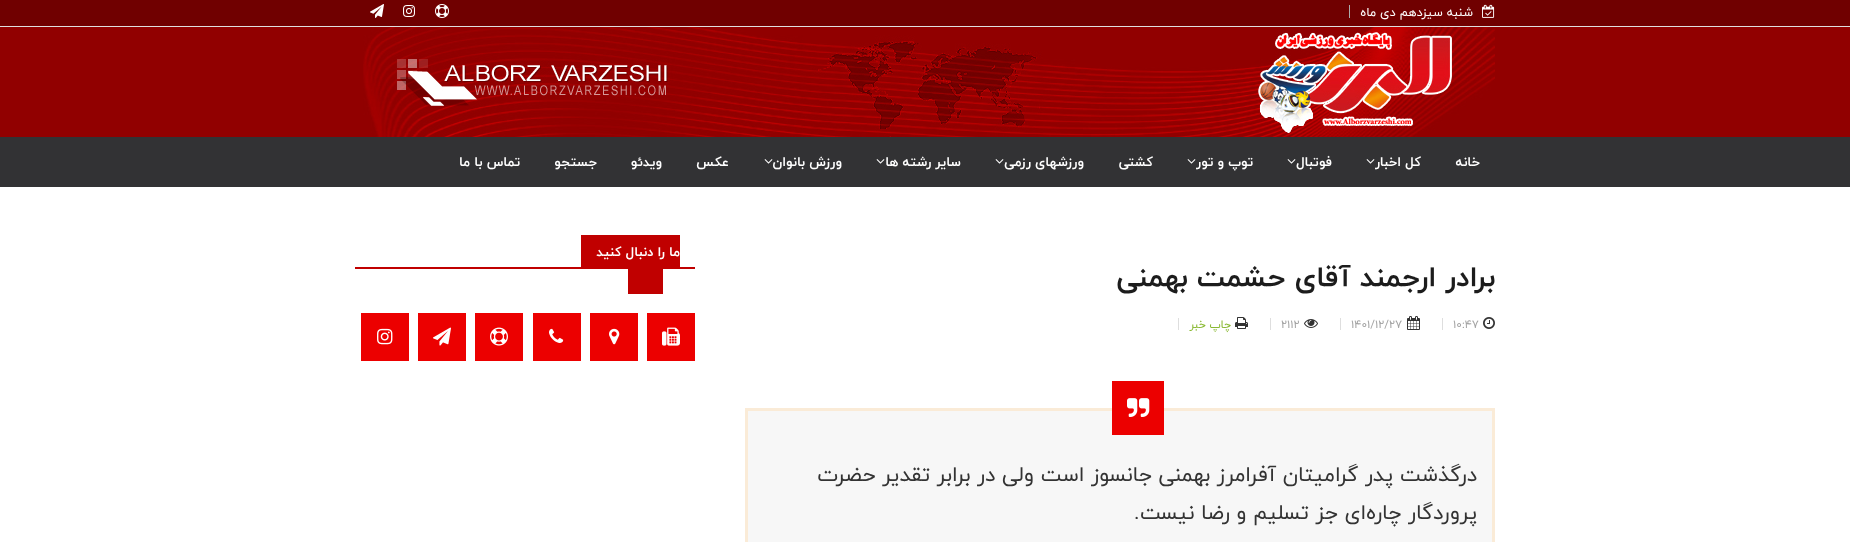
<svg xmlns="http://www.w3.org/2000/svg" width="1850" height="542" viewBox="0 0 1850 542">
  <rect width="100%" height="100%" fill="rgb(255,255,255)"/>
  <rect x="0" y="0" width="1850" height="26" fill="rgb(112,0,0)"/>
  <rect x="0" y="26" width="1850" height="1" fill="rgb(222,222,222)"/>
  <rect x="1349" y="5" width="1" height="13" fill="rgb(172,172,172)"/>
  <image x="1482" y="4" width="13" height="14" href="pic1.png"/>
  <text x="1473" y="16" font-family="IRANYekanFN" font-size="13" direction="rtl" fill="rgb(255,255,255)">شنبه سیزدهم دی ماه</text>
  <image x="435" y="4" width="14" height="14" href="pic2.png"/>
  <image x="403" y="5" width="12" height="12" href="pic3.png"/>
  <image x="370" y="4" width="14" height="14" href="pic4.png"/>
  <rect x="0" y="27" width="1850" height="110" fill="rgb(145,0,0)"/>
  <image x="363" y="27" width="1132" height="110" href="pic5.png"/>
  <rect x="0" y="137" width="1850" height="50" fill="rgb(50,50,52)"/>
  <g font-family="IRANYekanFN" font-size="14" font-weight="bold" direction="rtl" fill="rgb(255,255,255)">
    <text x="1480" y="166">خانه</text>
    <text x="1421" y="166">کل اخبار</text>
  </g>
  <image x="1366" y="159" width="9" height="5" href="pic6.png"/>
  <text x="1332" y="166" font-family="IRANYekanFN" font-size="14" font-weight="bold" direction="rtl" fill="rgb(255,255,255)">فوتبال</text>
  <image x="1287" y="159" width="9" height="5" href="pic6.png"/>
  <text x="1253" y="166" font-family="IRANYekanFN" font-size="14" font-weight="bold" direction="rtl" fill="rgb(255,255,255)">توپ و تور</text>
  <image x="1187" y="159" width="9" height="5" href="pic6.png"/>
  <g font-family="IRANYekanFN" font-size="14" font-weight="bold" direction="rtl" fill="rgb(255,255,255)">
    <text x="1153" y="166">کشتی</text>
    <text x="1084" y="166">ورزشهای رزمی</text>
  </g>
  <image x="995" y="159" width="9" height="5" href="pic6.png"/>
  <text x="961" y="166" font-family="IRANYekanFN" font-size="14" font-weight="bold" direction="rtl" fill="rgb(255,255,255)">سایر رشته ها</text>
  <image x="876" y="159" width="9" height="5" href="pic6.png"/>
  <text x="842" y="166" font-family="IRANYekanFN" font-size="14" font-weight="bold" direction="rtl" fill="rgb(255,255,255)">ورزش بانوان</text>
  <image x="764" y="159" width="9" height="5" href="pic6.png"/>
  <g font-family="IRANYekanFN" font-size="14" font-weight="bold" direction="rtl" fill="rgb(255,255,255)">
    <text x="729" y="166">عکس</text>
    <text x="662" y="166">ویدئو</text>
    <text x="597" y="166">جستجو</text>
    <text x="520" y="166">تماس با ما</text>
  </g>
  <rect x="355" y="267" width="340" height="2" fill="rgb(192,0,0)"/>
  <rect x="581" y="235" width="99" height="32" fill="rgb(192,0,0)"/>
  <text x="680" y="256" font-family="IRANYekanFN" font-size="14" font-weight="bold" direction="rtl" fill="rgb(255,255,255)">ما را دنبال کنید</text>
  <rect x="628" y="269" width="35" height="25" fill="rgb(192,0,0)"/>
  <rect x="647" y="313" width="48" height="48" fill="rgb(236,0,0)"/>
  <image x="662" y="327" width="18" height="19" href="pic7.png"/>
  <rect x="590" y="313" width="48" height="48" fill="rgb(236,0,0)"/>
  <image x="609" y="328" width="11" height="17" href="pic8.png"/>
  <rect x="533" y="313" width="48" height="48" fill="rgb(236,0,0)"/>
  <image x="549" y="328" width="15" height="15" href="pic9.png"/>
  <rect x="475" y="313" width="48" height="48" fill="rgb(236,0,0)"/>
  <image x="490" y="327" width="18" height="19" href="pic10.png"/>
  <rect x="418" y="313" width="48" height="48" fill="rgb(236,0,0)"/>
  <image x="433" y="327" width="18" height="19" href="pic11.png"/>
  <rect x="361" y="313" width="48" height="48" fill="rgb(236,0,0)"/>
  <image x="377" y="328" width="16" height="17" href="pic12.png"/>
  <text x="1495" y="286" font-family="IRANYekanFN" font-size="30" font-weight="bold" direction="rtl" fill="rgb(28,28,28)">برادر ارجمند آقای حشمت بهمنی</text>
  <image x="1483" y="317" width="12" height="12" href="pic13.png"/>
  <rect x="1442" y="318" width="1" height="12" fill="rgb(222,222,222)"/>
  <text x="1453" y="328" font-family="IRANYekanFN" font-size="12" fill="rgb(163,163,163)">10:47</text>
  <image x="1407" y="316" width="13" height="14" href="pic14.png"/>
  <rect x="1340" y="318" width="1" height="12" fill="rgb(222,222,222)"/>
  <text x="1351" y="328" font-family="IRANYekanFN" font-size="12" fill="rgb(163,163,163)">1401/12/27</text>
  <image x="1304" y="319" width="14" height="9" href="pic15.png"/>
  <rect x="1270" y="318" width="1" height="12" fill="rgb(222,222,222)"/>
  <text x="1281" y="328" font-family="IRANYekanFN" font-size="12" fill="rgb(163,163,163)">2112</text>
  <image x="1235" y="317" width="13" height="12" href="pic16.png"/>
  <rect x="1178" y="318" width="1" height="12" fill="rgb(222,222,222)"/>
  <text x="1231" y="328" font-family="IRANYekanFN" font-size="12" direction="rtl" fill="rgb(138,185,51)">چاپ خبر</text>
  <rect x="746.5" y="409.5" width="747" height="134" fill="rgb(247,247,247)" stroke="rgb(250,235,215)" stroke-width="3"/>
  <rect x="1112" y="381" width="52" height="54" fill="rgb(236,0,0)"/>
  <image x="1127" y="398" width="23" height="19" href="pic17.png"/>
  <g font-family="IRANYekanFN" font-size="22" direction="rtl" fill="rgb(51,51,51)">
    <text>
      <tspan x="1477" y="481">درگذشت پدر گرامیتان آفرامرز بهمنی جانسوز است ولی در برابر تقدیر حضرت</tspan>
      <tspan x="1477" y="519">پروردگار چاره‌ای جز تسلیم و رضا نیست.</tspan>
    </text>
  </g>
</svg>
